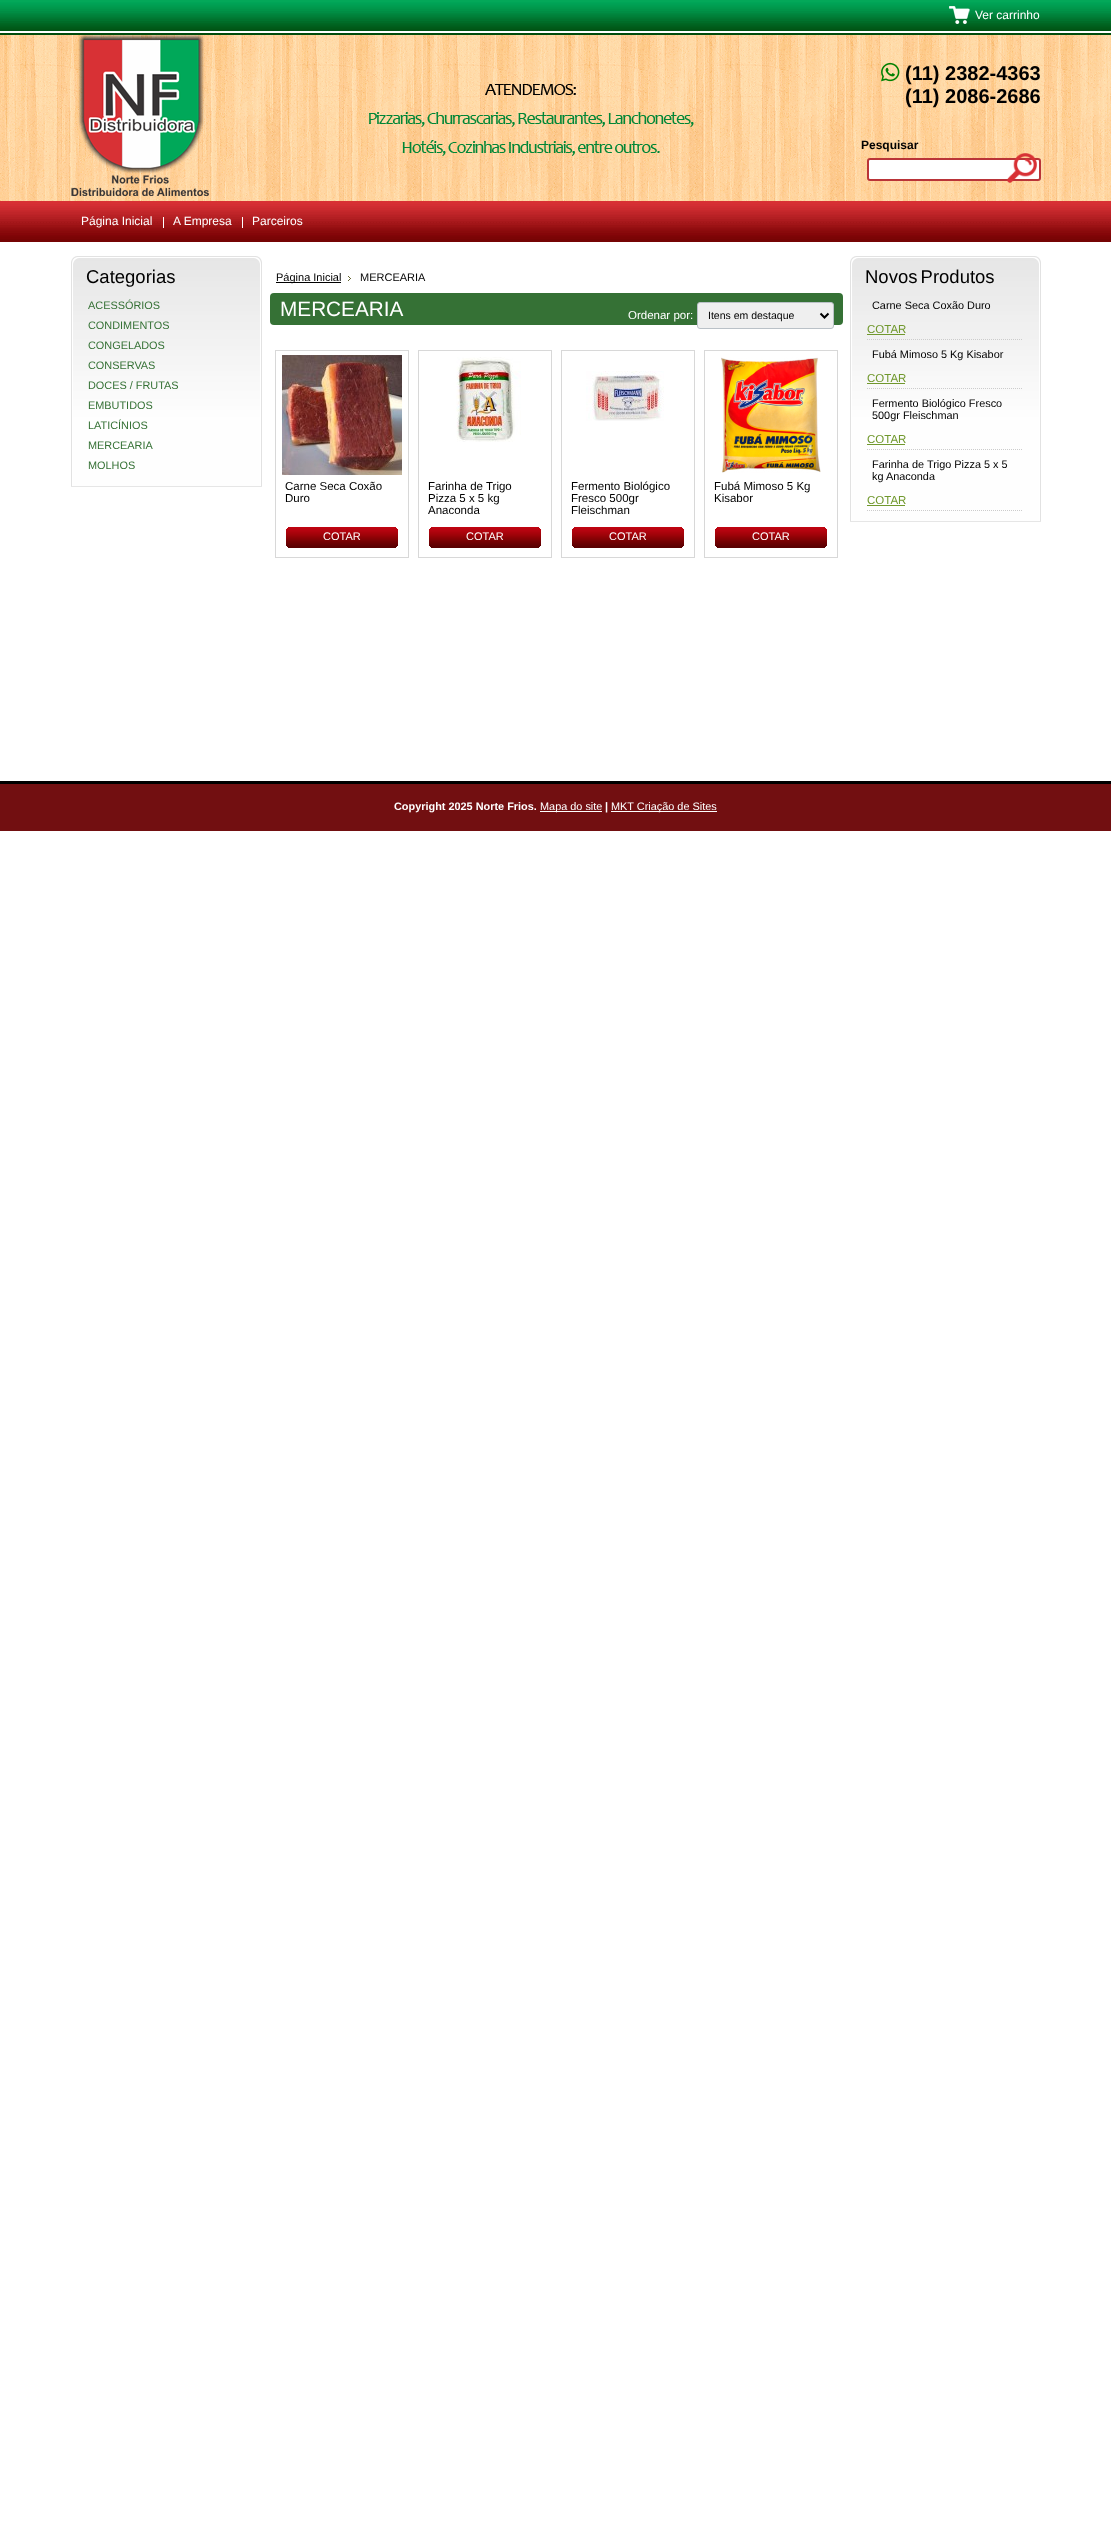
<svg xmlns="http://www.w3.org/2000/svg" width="1111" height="2525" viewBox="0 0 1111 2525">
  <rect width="100%" height="100%" fill="rgb(255,255,255)"/>
  <image x="0" y="0" width="1111" height="242" href="pic1.png"/>
  <image x="949" y="6" width="21" height="18" href="pic2.png"/>
  <text x="975" y="19" font-family="Liberation Sans" font-size="12" fill="rgb(255,255,255)">Ver carrinho</text>
  <image x="71" y="35" width="138" height="161" href="pic3.png"/>
  <image x="369" y="84" width="325" height="72" href="pic4.png"/>
  <image x="881" y="62" width="19" height="20" href="pic5.png"/>
  <g font-family="Liberation Sans" font-size="20" font-weight="bold" fill="rgb(0,0,0)">
    <text>
      <tspan x="905" y="80">(11) 2382-4363</tspan>
      <tspan x="905" y="103">(11) 2086-2686</tspan>
    </text>
  </g>
  <text x="861" y="149" font-family="Liberation Sans" font-size="12" font-weight="bold" fill="rgb(0,0,0)">Pesquisar</text>
  <rect x="868" y="159" width="172" height="21" rx="2" fill="rgb(255,255,255)" stroke="rgb(186,52,56)" stroke-width="2"/>
  <image x="1007" y="153" width="30" height="30" href="pic6.png"/>
  <text x="81" y="225" font-family="Liberation Sans" font-size="12" fill="rgb(255,255,255)">Página Inicial</text>
  <rect x="163" y="217" width="1" height="11" fill="rgb(255,255,255)"/>
  <text x="173" y="225" font-family="Liberation Sans" font-size="12" fill="rgb(255,255,255)">A Empresa</text>
  <rect x="242" y="217" width="1" height="11" fill="rgb(255,255,255)"/>
  <text x="252" y="225" font-family="Liberation Sans" font-size="12" fill="rgb(255,255,255)">Parceiros</text>
  <image x="71" y="256" width="191" height="230" href="pic7.png"/>
  <rect x="71" y="486" width="191" height="1" fill="rgb(230,230,230)"/>
  <text x="86" y="283" font-family="Liberation Sans" font-size="18.5" fill="rgb(0,0,0)">Categorias</text>
  <g font-family="Liberation Sans" font-size="10.9" fill="rgb(53,113,53)">
    <text>
      <tspan x="88" y="309">ACESSÓRIOS</tspan>
      <tspan x="88" y="329">CONDIMENTOS</tspan>
      <tspan x="88" y="349">CONGELADOS</tspan>
      <tspan x="88" y="369">CONSERVAS</tspan>
      <tspan x="88" y="389">DOCES / FRUTAS</tspan>
      <tspan x="88" y="409">EMBUTIDOS</tspan>
      <tspan x="88" y="429">LATICÍNIOS</tspan>
      <tspan x="88" y="449">MERCEARIA</tspan>
      <tspan x="88" y="469">MOLHOS</tspan>
    </text>
  </g>
  <rect x="276" y="282" width="65" height="1" fill="rgb(0,0,0)"/>
  <text x="276" y="281" font-family="Liberation Sans" font-size="11" fill="rgb(0,0,0)">Página Inicial</text>
  <image x="348" y="276" width="3" height="5" href="pic8.png"/>
  <text x="360" y="281" font-family="Liberation Sans" font-size="11" fill="rgb(0,0,0)">MERCEARIA</text>
  <rect x="270" y="293" width="573" height="32" rx="4" fill="rgb(53,113,53)"/>
  <text x="280" y="316" font-family="Liberation Sans" font-size="20.75" fill="rgb(255,255,255)">MERCEARIA</text>
  <text x="628" y="319" font-family="Liberation Sans" font-size="11.5" fill="rgb(255,255,255)">Ordenar por:</text>
  <rect x="697.5" y="302.5" width="136" height="26" rx="2.5" fill="rgb(239,239,239)" stroke="rgb(186,193,199)"/>
  <path d="M820.5 313.5L824.5 317.5L828.5 313.5" fill="none" stroke="rgb(0,0,0)" stroke-width="2"/>
  <text x="708" y="319" font-family="Liberation Sans" font-size="10.5" fill="rgb(0,0,0)">Itens em destaque</text>
  <rect x="275.5" y="350.5" width="133" height="207" fill="none" stroke="rgb(216,216,216)"/>
  <image x="282" y="355" width="120" height="120" href="pic9.png"/>
  <g font-family="Liberation Sans" font-size="11.5" fill="rgb(0,0,0)">
    <text>
      <tspan x="285" y="490">Carne Seca Coxão</tspan>
      <tspan x="285" y="502">Duro</tspan>
    </text>
  </g>
  <image x="286" y="527" width="112" height="21" href="pic10.png"/>
  <text x="323" y="540" font-family="Liberation Sans" font-size="11" fill="rgb(255,255,255)">COTAR</text>
  <rect x="418.5" y="350.5" width="133" height="207" fill="none" stroke="rgb(216,216,216)"/>
  <image x="456" y="357" width="65" height="85" href="pic11.png"/>
  <g font-family="Liberation Sans" font-size="11.5" fill="rgb(0,0,0)">
    <text>
      <tspan x="428" y="490">Farinha de Trigo</tspan>
      <tspan x="428" y="502">Pizza 5 x 5 kg</tspan>
      <tspan x="428" y="514">Anaconda</tspan>
    </text>
  </g>
  <image x="429" y="527" width="112" height="21" href="pic10.png"/>
  <text x="466" y="540" font-family="Liberation Sans" font-size="11" fill="rgb(255,255,255)">COTAR</text>
  <rect x="561.5" y="350.5" width="133" height="207" fill="none" stroke="rgb(216,216,216)"/>
  <image x="586" y="371" width="78" height="50" href="pic12.png"/>
  <g font-family="Liberation Sans" font-size="11.5" fill="rgb(0,0,0)">
    <text>
      <tspan x="571" y="490">Fermento Biológico</tspan>
      <tspan x="571" y="502">Fresco 500gr</tspan>
      <tspan x="571" y="514">Fleischman</tspan>
    </text>
  </g>
  <image x="572" y="527" width="112" height="21" href="pic10.png"/>
  <text x="609" y="540" font-family="Liberation Sans" font-size="11" fill="rgb(255,255,255)">COTAR</text>
  <rect x="704.5" y="350.5" width="133" height="207" fill="none" stroke="rgb(216,216,216)"/>
  <image x="721" y="357" width="100" height="116" href="pic13.png"/>
  <g font-family="Liberation Sans" font-size="11.5" fill="rgb(0,0,0)">
    <text>
      <tspan x="714" y="490">Fubá Mimoso 5 Kg</tspan>
      <tspan x="714" y="502">Kisabor</tspan>
    </text>
  </g>
  <image x="715" y="527" width="112" height="21" href="pic10.png"/>
  <text x="752" y="540" font-family="Liberation Sans" font-size="11" fill="rgb(255,255,255)">COTAR</text>
  <image x="850" y="256" width="191" height="265" href="pic14.png"/>
  <rect x="850" y="521" width="191" height="1" fill="rgb(230,230,230)"/>
  <text x="865" y="283" word-spacing="-2" font-family="Liberation Sans" font-size="18.5" fill="rgb(0,0,0)">Novos Produtos</text>
  <image x="867" y="339" width="155" height="1" href="pic15.png"/>
  <text x="872" y="309" font-family="Liberation Sans" font-size="10.9" fill="rgb(0,0,0)">Carne Seca Coxão Duro</text>
  <text x="867" y="333" font-family="Liberation Sans" font-size="11.5" fill="rgb(112,152,45)">COTAR</text>
  <rect x="867" y="334" width="38" height="1" fill="rgb(112,152,45)"/>
  <image x="867" y="388" width="155" height="1" href="pic16.png"/>
  <text x="872" y="358" font-family="Liberation Sans" font-size="10.9" fill="rgb(0,0,0)">Fubá Mimoso 5 Kg Kisabor</text>
  <text x="867" y="382" font-family="Liberation Sans" font-size="11.5" fill="rgb(112,152,45)">COTAR</text>
  <rect x="867" y="383" width="38" height="1" fill="rgb(112,152,45)"/>
  <image x="867" y="449" width="155" height="1" href="pic17.png"/>
  <g font-family="Liberation Sans" font-size="10.9" fill="rgb(0,0,0)">
    <text>
      <tspan x="872" y="407">Fermento Biológico Fresco</tspan>
      <tspan x="872" y="419">500gr Fleischman</tspan>
    </text>
  </g>
  <text x="867" y="443" font-family="Liberation Sans" font-size="11.5" fill="rgb(112,152,45)">COTAR</text>
  <rect x="867" y="444" width="38" height="1" fill="rgb(112,152,45)"/>
  <image x="867" y="510" width="155" height="1" href="pic17.png"/>
  <g font-family="Liberation Sans" font-size="10.9" fill="rgb(0,0,0)">
    <text>
      <tspan x="872" y="468">Farinha de Trigo Pizza 5 x 5</tspan>
      <tspan x="872" y="480">kg Anaconda</tspan>
    </text>
  </g>
  <text x="867" y="504" font-family="Liberation Sans" font-size="11.5" fill="rgb(112,152,45)">COTAR</text>
  <rect x="867" y="505" width="38" height="1" fill="rgb(112,152,45)"/>
  <rect x="0" y="784" width="1111" height="47" fill="rgb(114,15,17)"/>
  <rect x="0" y="781" width="1111" height="3" fill="rgb(0,0,0)"/>
  <text x="394" y="810" font-family="Liberation Sans" font-size="10.9" font-weight="bold" fill="rgb(255,255,255)">Copyright 2025 Norte Frios.</text>
  <rect x="540" y="811" width="62" height="1" fill="rgb(255,255,255)"/>
  <text x="540" y="810" font-family="Liberation Sans" font-size="10.9" fill="rgb(255,255,255)">Mapa do site</text>
  <text x="605" y="810" font-family="Liberation Sans" font-size="10.9" font-weight="bold" fill="rgb(255,255,255)">|</text>
  <rect x="611" y="811" width="106" height="1" fill="rgb(255,255,255)"/>
  <text x="611" y="810" font-family="Liberation Sans" font-size="10.9" fill="rgb(255,255,255)">MKT Criação de Sites</text>
</svg>
